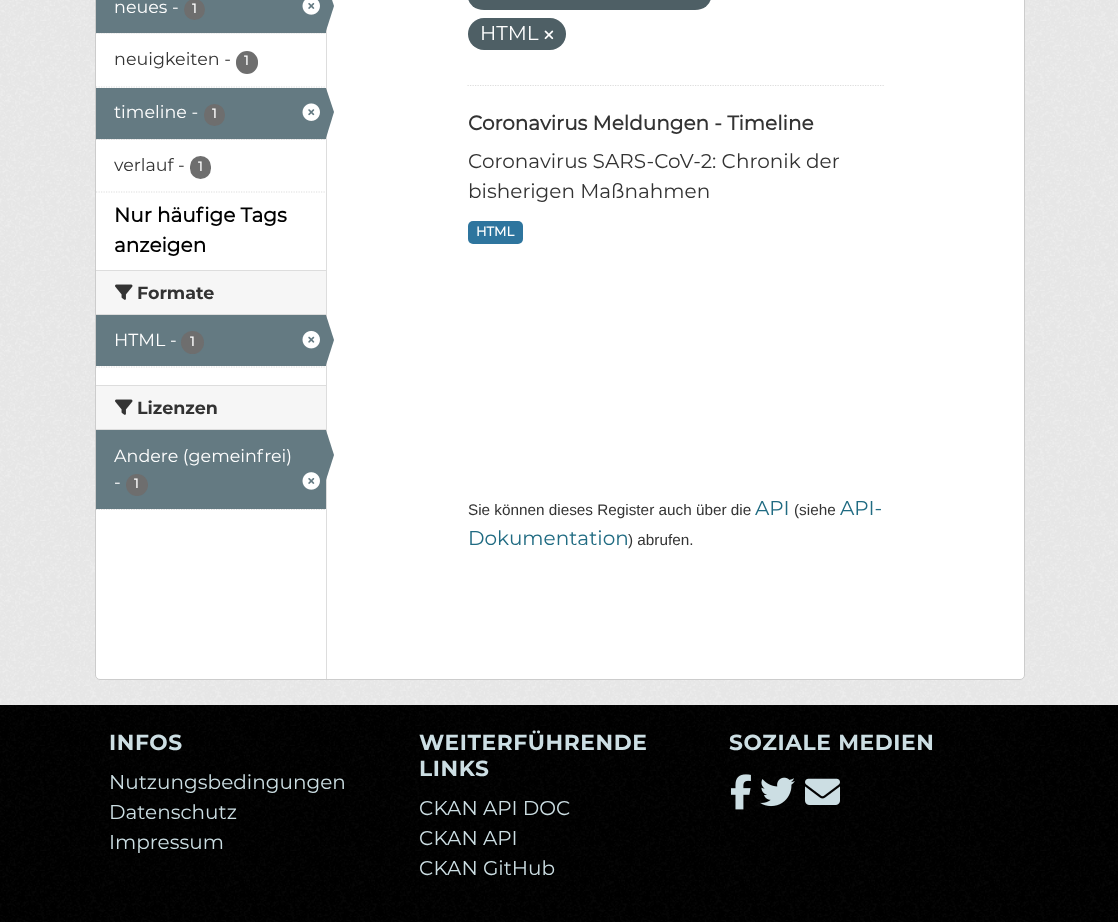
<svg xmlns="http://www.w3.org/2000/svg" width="1118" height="922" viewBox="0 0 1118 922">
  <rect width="100%" height="100%" fill="rgb(0,0,0)"/>
  <rect x="0" y="0" width="1118" height="705" fill="rgb(238,238,238)"/>
  <image x="0" y="0" width="1118" height="705" href="pic1.png"/>
  <rect x="95.5" y="-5.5" width="929" height="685" rx="4.5" fill="rgb(255,255,255)" stroke="rgb(204,204,204)"/>
  <rect x="96" y="33" width="230" height="1" fill="rgb(246,246,246)"/>
  <path d="M96 33H326" fill="none" stroke="rgb(221,221,221)" stroke-width="1.2" stroke-dasharray="1.25 1.25"/>
  <rect x="96" y="0" width="230" height="33" fill="rgb(100,122,130)"/>
  <text x="114" y="13" font-family="Montserrat" font-size="17.5" fill="rgb(255,255,255)">neues -</text>
  <circle cx="194.5" cy="9.5" r="10.5" fill="rgb(110,110,110)"/>
  <text x="192" y="13" font-family="'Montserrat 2'" font-size="13" font-weight="bold" fill="rgb(255,255,255)">1</text>
  <image x="302" y="0" width="18" height="15" href="pic2.png"/>
  <rect x="326" y="28" width="1" height="651" fill="rgb(221,221,221)"/>
  <path d="M326 31V-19L334 6Z" fill="rgb(100,122,130)"/>
  <path d="M96 87H326" fill="none" stroke="rgb(221,221,221)" stroke-width="1.2" stroke-dasharray="1.25 1.25"/>
  <text x="114" y="65" font-family="Montserrat" font-size="17.5" fill="rgb(51,51,51)">neuigkeiten -</text>
  <rect x="236" y="51" width="22" height="23" rx="11" fill="rgb(110,110,110)"/>
  <text x="244" y="65" font-family="'Montserrat 2'" font-size="13" font-weight="bold" fill="rgb(255,255,255)">1</text>
  <rect x="97" y="139" width="229" height="1" fill="rgb(246,246,246)"/>
  <path d="M96 139.5H326" fill="none" stroke="rgb(221,221,221)" stroke-width="1.2" stroke-dasharray="1.25 1.25"/>
  <rect x="96" y="88" width="230" height="51" fill="rgb(100,122,130)"/>
  <text x="114" y="118" font-family="Montserrat" font-size="17.5" fill="rgb(255,255,255)">timeline -</text>
  <rect x="204" y="104" width="21" height="22" rx="10.5" fill="rgb(110,110,110)"/>
  <text x="212" y="118" font-family="'Montserrat 2'" font-size="13" font-weight="bold" fill="rgb(255,255,255)">1</text>
  <image x="302" y="103" width="18" height="18" href="pic3.png"/>
  <path d="M326 138V88L334 112Z" fill="rgb(100,122,130)"/>
  <text x="114" y="171" font-family="Montserrat" font-size="17.5" fill="rgb(51,51,51)">verlauf -</text>
  <rect x="190" y="156" width="21" height="23" rx="10.5" fill="rgb(110,110,110)"/>
  <text x="198" y="171" font-family="'Montserrat 2'" font-size="13" font-weight="bold" fill="rgb(255,255,255)">1</text>
  <path d="M96 192H326" fill="none" stroke="rgb(221,221,221)" stroke-width="1.2" stroke-dasharray="1.25 1.25"/>
  <g font-family="'Montserrat 2'" font-size="20" font-weight="bold" fill="rgb(0,0,0)">
    <text>
      <tspan x="114" y="222">Nur häufige Tags</tspan>
      <tspan x="114" y="252">anzeigen</tspan>
    </text>
  </g>
  <rect x="96" y="271" width="230" height="43" fill="rgb(246,246,246)"/>
  <rect x="96" y="270" width="230" height="1" fill="rgb(221,221,221)"/>
  <rect x="96" y="314" width="230" height="1" fill="rgb(221,221,221)"/>
  <image x="115" y="284" width="18" height="16" href="pic4.png"/>
  <text x="137" y="299" font-family="Montserrat" font-size="17.5" font-weight="bold" fill="rgb(51,51,51)">Formate</text>
  <rect x="96" y="315" width="230" height="51" fill="rgb(100,122,130)"/>
  <text x="114" y="346" font-family="Montserrat" font-size="17.5" fill="rgb(255,255,255)">HTML -</text>
  <circle cx="192.5" cy="342.5" r="11.5" fill="rgb(110,110,110)"/>
  <text x="190" y="346" font-family="'Montserrat 2'" font-size="13" font-weight="bold" fill="rgb(255,255,255)">1</text>
  <image x="302" y="330" width="18" height="19" href="pic5.png"/>
  <path d="M326 365V315L334 340Z" fill="rgb(100,122,130)"/>
  <path d="M96 367H326" fill="none" stroke="rgb(221,221,221)" stroke-width="1.2" stroke-dasharray="1.25 1.25"/>
  <rect x="96" y="386" width="230" height="43" fill="rgb(246,246,246)"/>
  <rect x="96" y="385" width="230" height="1" fill="rgb(221,221,221)"/>
  <rect x="96" y="429" width="230" height="1" fill="rgb(221,221,221)"/>
  <image x="115" y="399" width="18" height="16" href="pic4.png"/>
  <text x="137" y="414" font-family="Montserrat" font-size="17.5" font-weight="bold" fill="rgb(51,51,51)">Lizenzen</text>
  <path d="M96 509.5H326" fill="none" stroke="rgb(221,221,221)" stroke-width="1.2" stroke-dasharray="1.25 1.25"/>
  <rect x="96" y="430" width="230" height="79" fill="rgb(100,122,130)"/>
  <text x="114" y="462" font-family="Montserrat" font-size="17.5" fill="rgb(255,255,255)">Andere (gemeinfrei)</text>
  <path d="M326 480V430L334 455Z" fill="rgb(100,122,130)"/>
  <text x="114" y="488" font-family="Montserrat" font-size="17.5" fill="rgb(255,255,255)">-</text>
  <circle cx="137" cy="485" r="11" fill="rgb(110,110,110)"/>
  <text x="134" y="488" font-family="'Montserrat 2'" font-size="13" font-weight="bold" fill="rgb(255,255,255)">1</text>
  <image x="302" y="472" width="18" height="18" href="pic6.png"/>
  <path d="M467.5 85.5H884" fill="none" stroke="rgb(221,221,221)" stroke-width="1.2" stroke-dasharray="1.25 1.25"/>
  <rect x="468" y="-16" width="243" height="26" rx="16" fill="rgb(78,95,101)"/>
  <rect x="468" y="18" width="98" height="32" rx="16" fill="rgb(78,95,101)"/>
  <text x="480" y="40" font-family="Montserrat" font-size="20" fill="rgb(255,255,255)">HTML</text>
  <image x="544" y="30" width="10" height="10" href="pic7.png"/>
  <text x="468" y="130" font-family="'Montserrat 2'" font-size="20" font-weight="bold" fill="rgb(51,51,51)">Coronavirus Meldungen - Timeline</text>
  <g font-family="Montserrat" font-size="20" fill="rgb(51,51,51)">
    <text>
      <tspan x="468" y="168">Coronavirus SARS-CoV-2: Chronik der</tspan>
      <tspan x="468" y="198">bisherigen Maßnahmen</tspan>
    </text>
  </g>
  <rect x="468" y="221" width="55" height="23" rx="5" fill="rgb(46,117,158)"/>
  <text x="476" y="236" font-family="'Montserrat 2'" font-size="13" font-weight="bold" fill="rgb(255,255,255)">HTML</text>
  <text x="468" y="515" font-family="Liberation Sans" font-size="15.3" fill="rgb(51,51,51)">Sie können dieses Register auch über die</text>
  <text x="755" y="515" font-family="Montserrat" font-size="20" fill="rgb(32,107,130)">API</text>
  <text x="794" y="515" font-family="Liberation Sans" font-size="15.3" fill="rgb(51,51,51)">(siehe</text>
  <g font-family="Montserrat" font-size="20" fill="rgb(32,107,130)">
    <text x="840" y="515">API-</text>
    <text x="468" y="545">Dokumentation</text>
  </g>
  <text x="628" y="545" font-family="Liberation Sans" font-size="15.3" fill="rgb(51,51,51)">) abrufen.</text>
  <image x="0" y="705" width="1118" height="217" href="pic8.png"/>
  <text x="109" y="750" font-family="Montserrat" font-size="21.75" font-weight="bold" letter-spacing="0.6" fill="rgb(204,222,227)">INFOS</text>
  <g font-family="Montserrat" font-size="20" fill="rgb(204,222,227)">
    <text>
      <tspan x="109" y="789">Nutzungsbedingungen</tspan>
      <tspan x="109" y="819">Datenschutz</tspan>
      <tspan x="109" y="849">Impressum</tspan>
    </text>
  </g>
  <g font-family="Montserrat" font-size="21.75" font-weight="bold" letter-spacing="0.6" fill="rgb(204,222,227)">
    <text>
      <tspan x="419" y="750">WEITERFÜHRENDE</tspan>
      <tspan x="419" y="776">LINKS</tspan>
    </text>
  </g>
  <g font-family="Montserrat" font-size="20" fill="rgb(204,222,227)">
    <text>
      <tspan x="419" y="815">CKAN API DOC</tspan>
      <tspan x="419" y="845">CKAN API</tspan>
      <tspan x="419" y="875">CKAN GitHub</tspan>
    </text>
  </g>
  <text x="729" y="750" font-family="Montserrat" font-size="21.75" font-weight="bold" letter-spacing="0.6" fill="rgb(204,222,227)">SOZIALE MEDIEN</text>
  <image x="730" y="774" width="21" height="36" href="pic9.png"/>
  <image x="760" y="777" width="35" height="30" href="pic10.png"/>
  <image x="805" y="778" width="35" height="27" href="pic11.png"/>
</svg>
